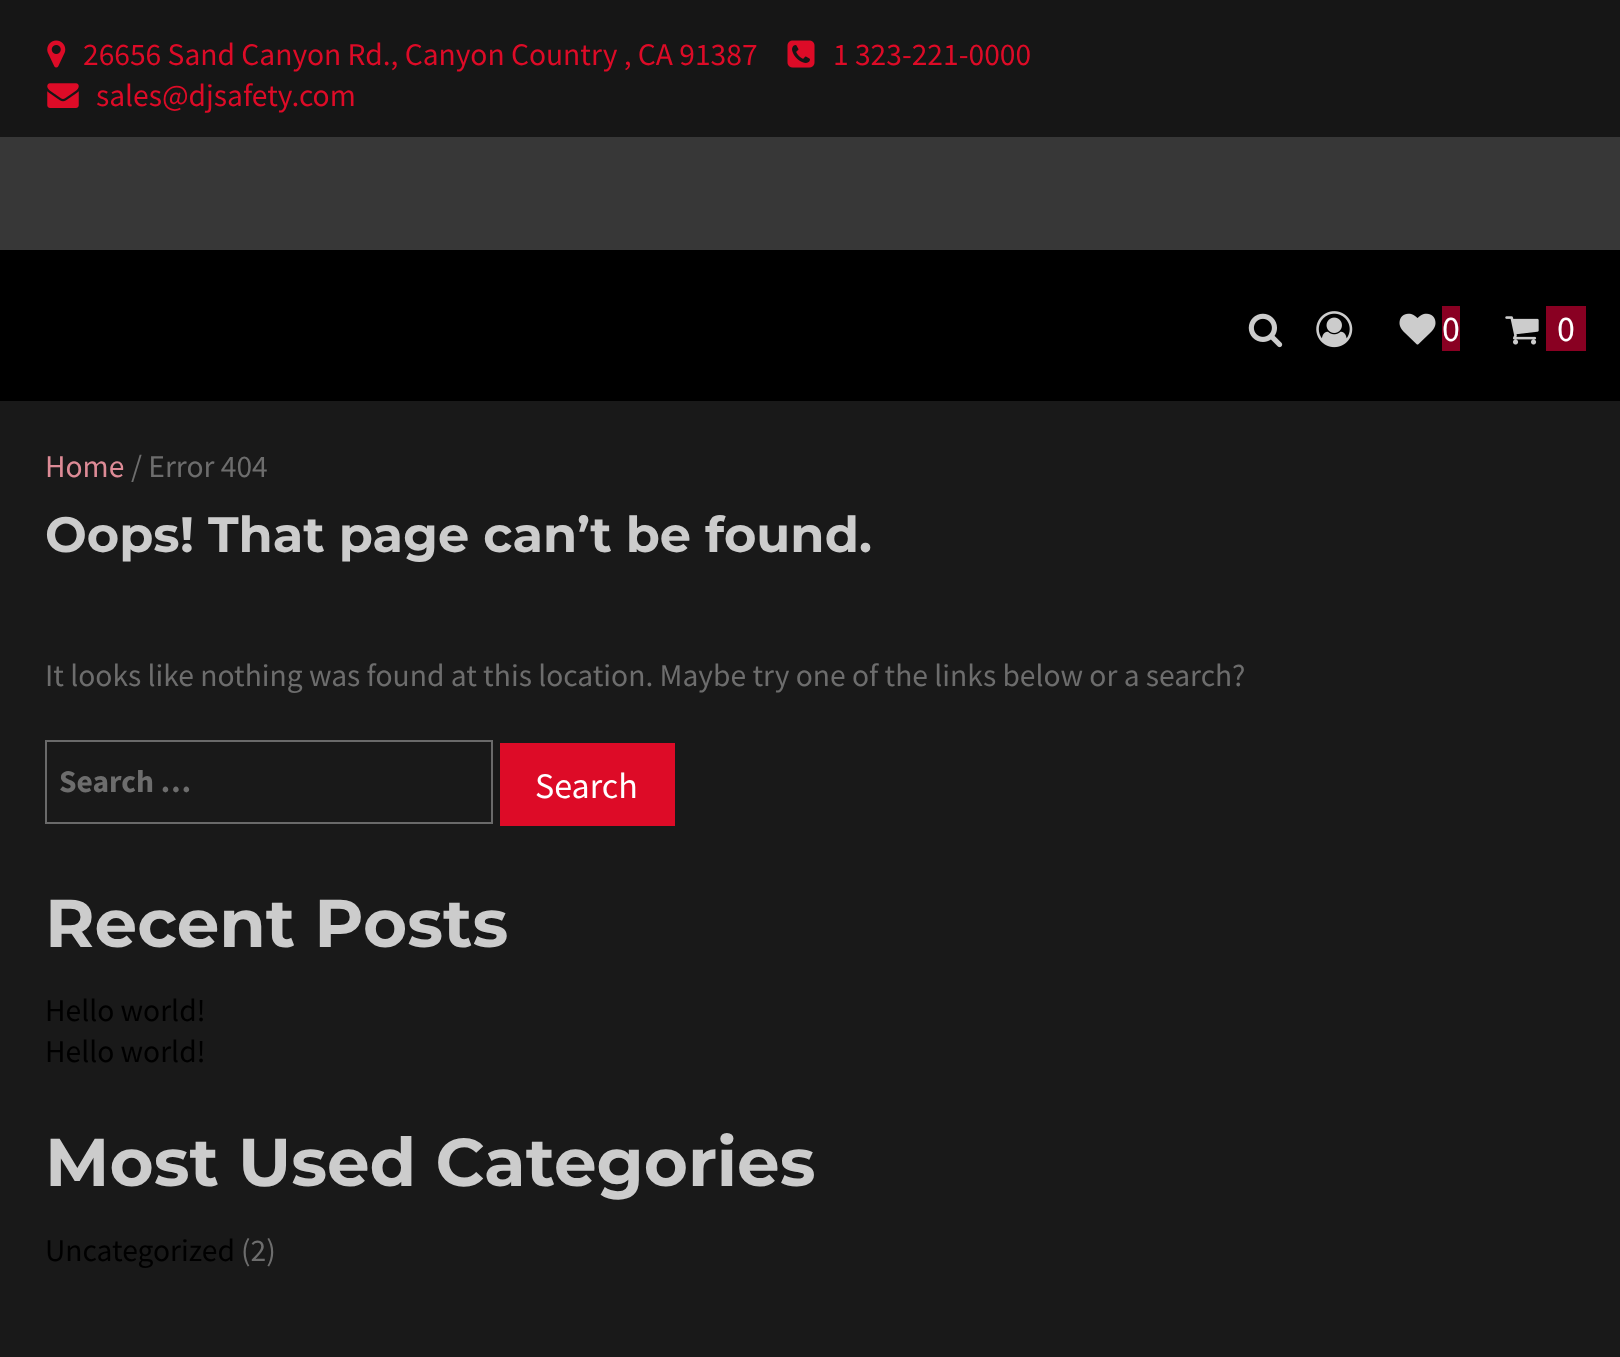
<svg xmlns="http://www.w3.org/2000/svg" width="1620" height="1357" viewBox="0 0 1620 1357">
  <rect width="100%" height="100%" fill="rgb(25,25,25)"/>
  <rect x="0" y="0" width="1620" height="137" fill="rgb(22,22,22)"/>
  <image x="47" y="40" width="19" height="28" href="pic1.png"/>
  <text x="83" y="65" font-family="Source Sans Pro" font-size="31.5" fill="rgb(221,11,39)">26656 Sand Canyon Rd., Canyon Country , CA 91387</text>
  <image x="787" y="40" width="28" height="28" href="pic2.png"/>
  <text x="833" y="65" font-family="Source Sans Pro" font-size="31.5" fill="rgb(221,11,39)">1 323-221-0000</text>
  <image x="47" y="83" width="32" height="25" href="pic3.png"/>
  <text x="96" y="106" font-family="Source Sans Pro" font-size="31.5" fill="rgb(221,11,39)">sales@djsafety.com</text>
  <rect x="0" y="137" width="1620" height="113" fill="rgb(55,55,55)"/>
  <rect x="0" y="250" width="1620" height="151" fill="rgb(0,0,0)"/>
  <image x="1248" y="313" width="35" height="35" href="pic4.png"/>
  <image x="1316" y="311" width="37" height="37" href="pic5.png"/>
  <image x="1399" y="313" width="37" height="32" href="pic6.png"/>
  <rect x="1442" y="306" width="18" height="45" fill="rgb(137,0,34)"/>
  <text x="1442" y="341" font-family="Source Sans Pro" font-size="36" fill="rgb(255,255,255)">0</text>
  <image x="1505" y="316" width="34" height="29" href="pic7.png"/>
  <rect x="1546" y="306" width="40" height="45" fill="rgb(137,0,34)"/>
  <text x="1557" y="341" font-family="Source Sans Pro" font-size="36" fill="rgb(255,255,255)">0</text>
  <text x="45" y="477" font-family="Source Sans Pro" font-size="31.5" fill="rgb(221,139,150)">Home</text>
  <text x="131" y="477" font-family="Source Sans Pro" font-size="31.5" fill="rgb(109,109,109)">/ Error 404</text>
  <text x="45" y="552" font-family="Montserrat" font-size="49.5" font-weight="bold" fill="rgb(204,204,204)">Oops! That page can’t be found.</text>
  <text x="45" y="686" font-family="Source Sans Pro" font-size="31.5" fill="rgb(109,109,109)">It looks like nothing was found at this location. Maybe try one of the links below or a search?</text>
  <rect x="46" y="741" width="446" height="82" fill="none" stroke="rgb(106,106,106)" stroke-width="2"/>
  <text x="59" y="792" font-family="Source Sans Pro" font-size="31.5" font-weight="bold" fill="rgb(109,109,109)">Search …</text>
  <rect x="500" y="743" width="175" height="83" fill="rgb(221,11,39)"/>
  <text x="535" y="798" font-family="Source Sans Pro" font-size="36" fill="rgb(255,255,255)">Search</text>
  <text x="45" y="947" font-family="Montserrat" font-size="67.5" font-weight="bold" fill="rgb(204,204,204)">Recent Posts</text>
  <g font-family="Source Sans Pro" font-size="31.5" fill="rgb(0,0,0)">
    <text>
      <tspan x="45" y="1021">Hello world!</tspan>
      <tspan x="45" y="1062">Hello world!</tspan>
    </text>
  </g>
  <text x="45" y="1186" font-family="Montserrat" font-size="67.5" font-weight="bold" fill="rgb(204,204,204)">Most Used Categories</text>
  <text x="45" y="1261" font-family="Source Sans Pro" font-size="31.5" fill="rgb(0,0,0)">Uncategorized</text>
  <text x="241" y="1261" font-family="Source Sans Pro" font-size="31.5" fill="rgb(109,109,109)">(2)</text>
</svg>
